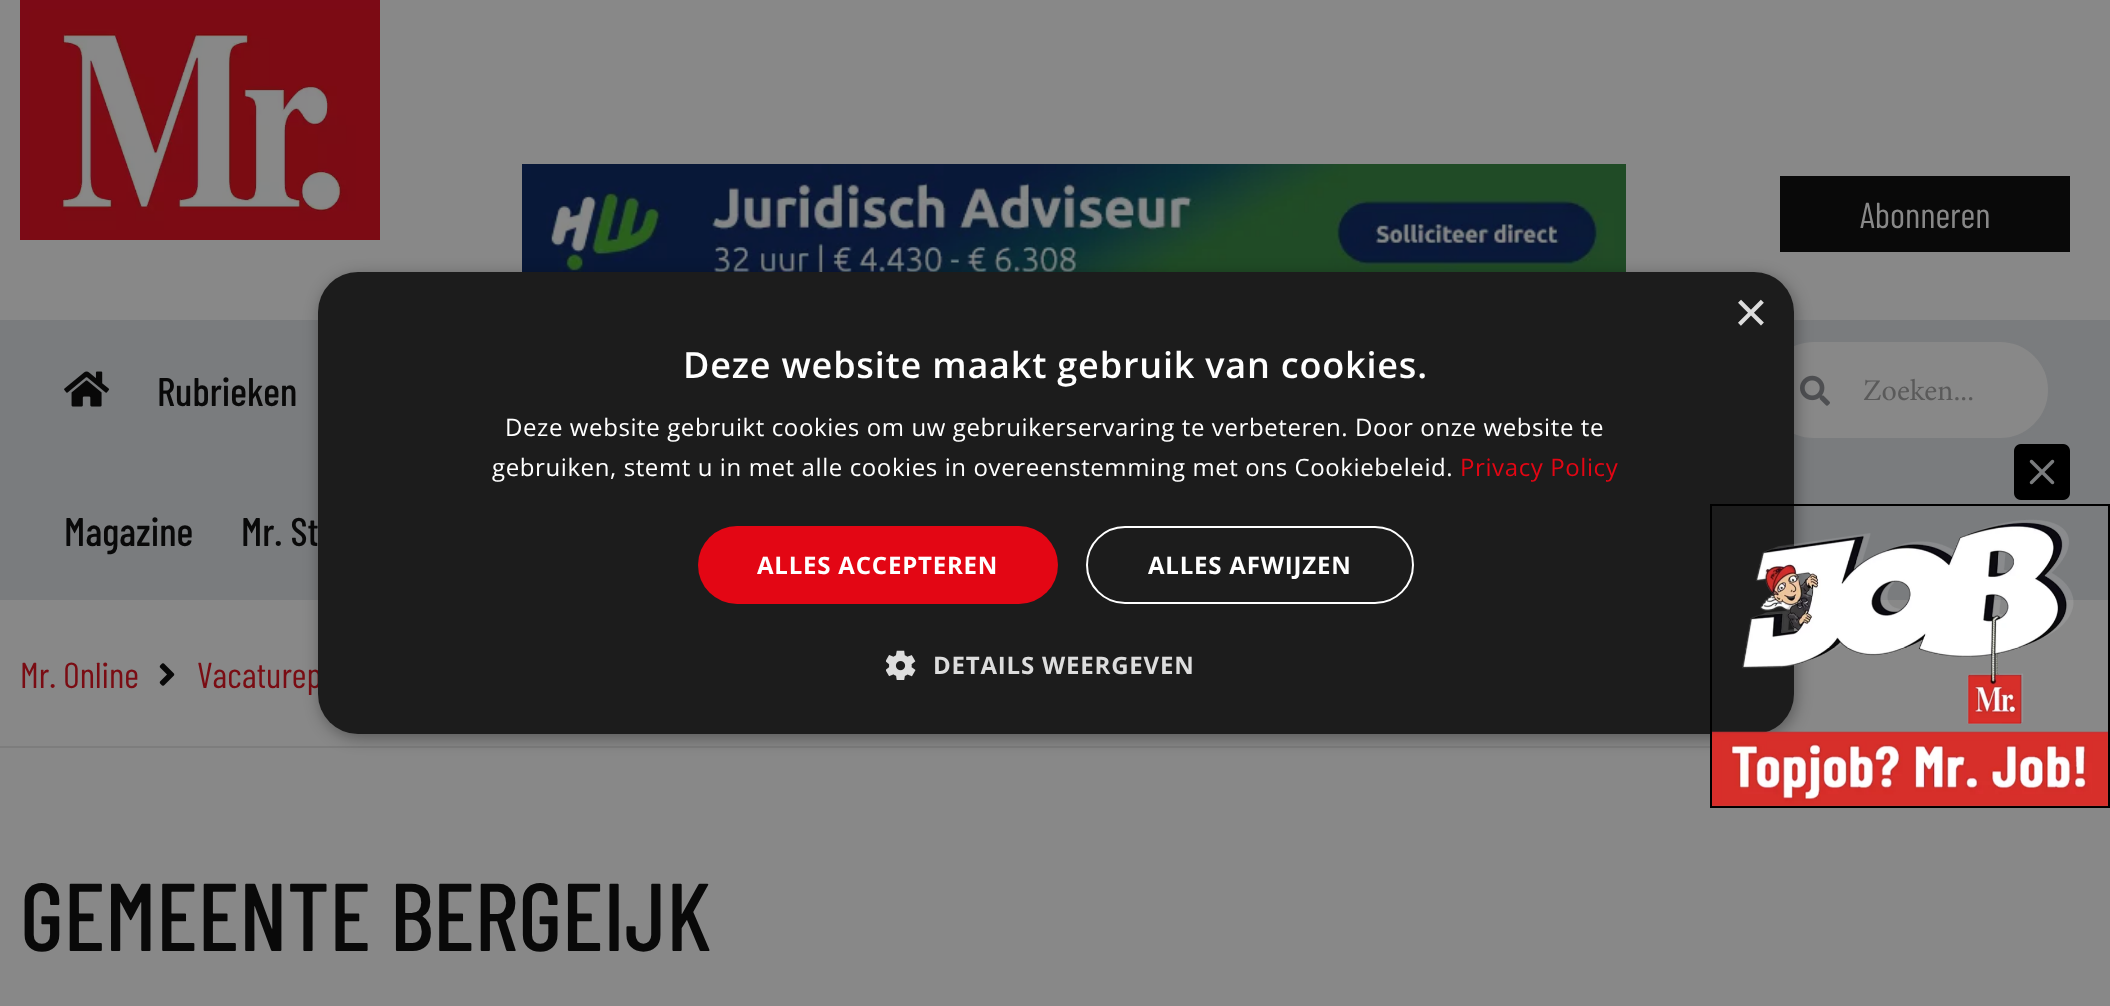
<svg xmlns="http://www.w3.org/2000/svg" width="2110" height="1006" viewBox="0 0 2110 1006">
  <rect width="100%" height="100%" fill="rgb(136,136,136)"/>
  <image x="20" y="0" width="360" height="240" href="pic1.png"/>
  <image x="522" y="164" width="1104" height="108" href="pic2.png"/>
  <rect x="1780" y="176" width="290" height="76" fill="rgb(9,9,9)"/>
  <text x="1860" y="228" font-family="Barlow Condensed" font-size="36" fill="rgb(136,136,136)">Abonneren</text>
  <rect x="0" y="320" width="2110" height="280" fill="rgb(122,124,126)"/>
  <image x="64" y="371" width="46" height="36" href="pic3.png"/>
  <g font-family="Barlow Condensed" font-size="40" font-weight="500" fill="rgb(9,9,9)">
    <text x="157" y="406">Rubrieken</text>
    <text x="64" y="546">Magazine</text>
    <text x="241" y="546">Mr. St</text>
  </g>
  <rect x="1765" y="341" width="284" height="98" rx="49" fill="rgb(136,136,136)" stroke="rgb(122,124,126)" stroke-width="2"/>
  <image x="1800" y="375" width="30" height="31" href="pic4.png"/>
  <text x="1863" y="400" font-family="Minion" font-size="30" fill="rgb(90,90,90)">Zoeken...</text>
  <rect x="0" y="746" width="2110" height="2" fill="rgb(125,125,125)"/>
  <text x="20" y="688" font-family="Barlow Condensed" font-size="36" fill="rgb(122,12,19)">Mr. Online</text>
  <image x="159" y="663" width="16" height="23" href="pic5.png"/>
  <text x="197" y="688" font-family="Barlow Condensed" font-size="36" fill="rgb(122,12,19)">Vacaturep</text>
  <text x="20" y="951" font-family="Barlow Condensed" font-size="96" font-weight="500" fill="rgb(9,9,9)">GEMEENTE BERGEIJK</text>
  <rect x="320" y="276" width="1476" height="462" rx="40" fill="rgba(0,0,0,0.35)" filter="blur(8px)"/>
  <rect x="318" y="272" width="1476" height="462" rx="40" fill="rgb(28,28,28)"/>
  <text x="1734" y="332" font-family="Liberation Sans" font-size="58" fill="rgb(221,221,221)">×</text>
  <text x="683" y="378" font-family="Open Sans" font-size="36" font-weight="600" letter-spacing="0.8" fill="rgb(255,255,255)">Deze website maakt gebruik van cookies.</text>
  <g font-family="Open Sans" font-size="24" letter-spacing="0.6" fill="rgb(255,255,255)">
    <text x="505" y="436">Deze website gebruikt cookies om uw gebruikerservaring te verbeteren. Door onze website te</text>
    <text x="492" y="476">gebruiken, stemt u in met alle cookies in overeenstemming met ons Cookiebeleid.</text>
  </g>
  <text x="1460" y="476" font-family="Open Sans" font-size="24" letter-spacing="0.6" fill="rgb(227,6,20)">Privacy Policy</text>
  <rect x="698" y="526" width="360" height="78" rx="39" fill="rgb(227,6,20)"/>
  <text x="757" y="574" font-family="Open Sans" font-size="24" font-weight="bold" letter-spacing="0.8" fill="rgb(255,255,255)">ALLES ACCEPTEREN</text>
  <rect x="1087" y="527" width="326" height="76" rx="38" fill="none" stroke="rgb(255,255,255)" stroke-width="2"/>
  <text x="1148" y="574" font-family="Open Sans" font-size="24" font-weight="bold" letter-spacing="0.8" fill="rgb(255,255,255)">ALLES AFWIJZEN</text>
  <image x="886" y="650" width="30" height="30" href="pic6.png"/>
  <text x="933" y="674" font-family="Open Sans" font-size="24" font-weight="bold" letter-spacing="0.8" fill="rgb(221,221,221)">DETAILS WEERGEVEN</text>
  <image x="2014" y="444" width="56" height="56" href="pic7.png"/>
  <rect x="1711" y="505" width="398" height="302" fill="none" stroke="rgb(0,0,0)" stroke-width="2"/>
  <image x="1712" y="519" width="396" height="288" href="pic8.png"/>
</svg>
